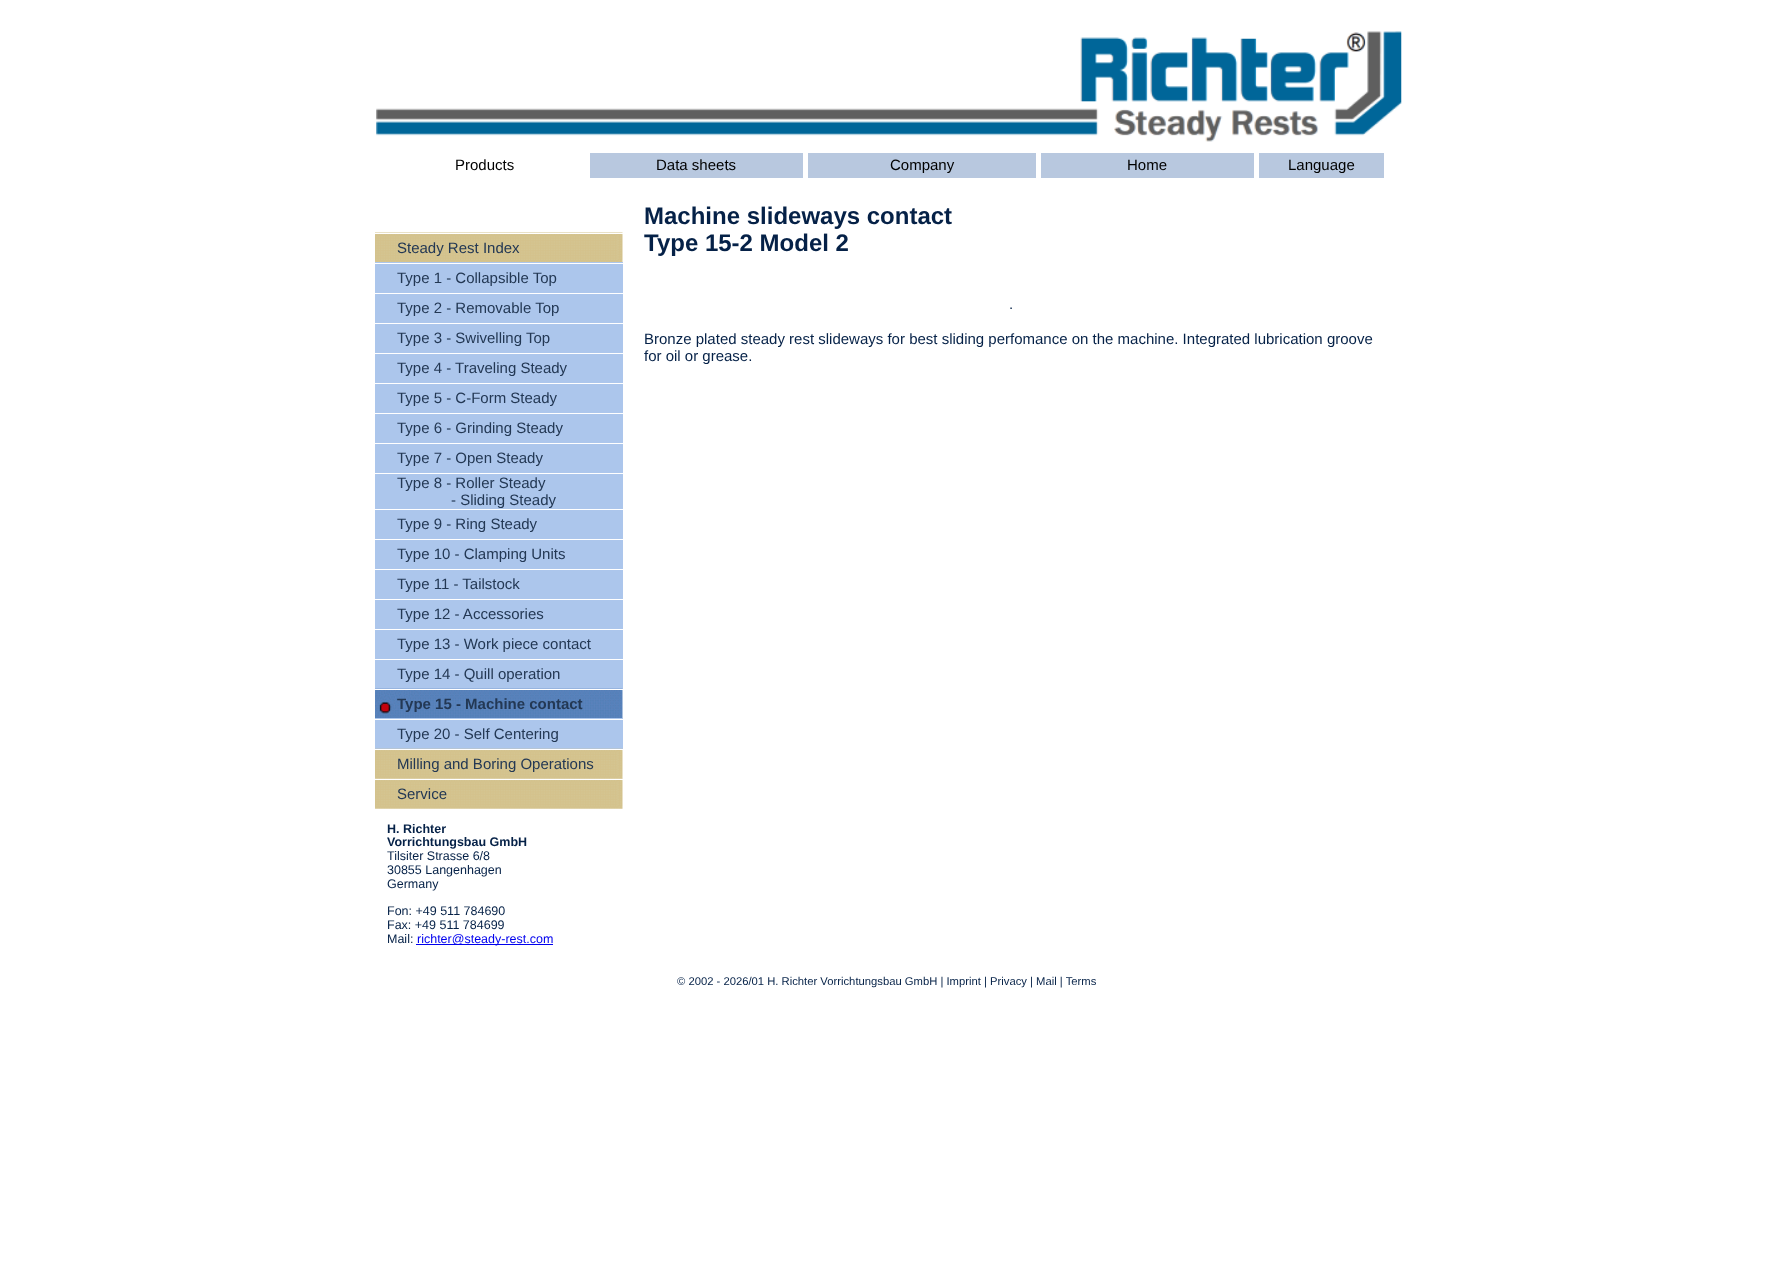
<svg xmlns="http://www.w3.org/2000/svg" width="1773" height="1271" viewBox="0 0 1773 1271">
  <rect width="100%" height="100%" fill="rgb(255,255,255)"/>
  <image x="376" y="31" width="1026" height="111" href="pic1.png"/>
  <rect x="590" y="153" width="794" height="25" fill="rgb(184,200,223)"/>
  <text x="455" y="170" font-family="Liberation Sans" font-size="15" fill="rgb(0,0,0)">Products</text>
  <rect x="803" y="153" width="5" height="25" fill="rgb(255,255,255)"/>
  <text x="656" y="170" font-family="Liberation Sans" font-size="15" fill="rgb(0,0,0)">Data sheets</text>
  <rect x="1036" y="153" width="5" height="25" fill="rgb(255,255,255)"/>
  <text x="890" y="170" font-family="Liberation Sans" font-size="15" fill="rgb(0,0,0)">Company</text>
  <rect x="1254" y="153" width="5" height="25" fill="rgb(255,255,255)"/>
  <g font-family="Liberation Sans" font-size="15" fill="rgb(0,0,0)">
    <text x="1127" y="170">Home</text>
    <text x="1288" y="170">Language</text>
  </g>
  <image x="375" y="232" width="248" height="30" href="pic2.png"/>
  <rect x="375" y="233" width="248" height="1" fill="rgb(255,255,255)"/>
  <text x="397" y="253" font-family="Liberation Sans" font-size="15" fill="rgb(35,56,84)">Steady Rest Index</text>
  <rect x="375" y="262" width="248" height="31" fill="rgb(172,198,236)"/>
  <rect x="375" y="263" width="248" height="1" fill="rgb(255,255,255)"/>
  <text x="397" y="283" font-family="Liberation Sans" font-size="15" fill="rgb(35,56,84)">Type 1 - Collapsible Top</text>
  <rect x="375" y="294" width="248" height="29" fill="rgb(172,198,236)"/>
  <text x="397" y="313" font-family="Liberation Sans" font-size="15" fill="rgb(35,56,84)">Type 2 - Removable Top</text>
  <rect x="375" y="324" width="248" height="29" fill="rgb(172,198,236)"/>
  <text x="397" y="343" font-family="Liberation Sans" font-size="15" fill="rgb(35,56,84)">Type 3 - Swivelling Top</text>
  <rect x="375" y="354" width="248" height="29" fill="rgb(172,198,236)"/>
  <text x="397" y="373" font-family="Liberation Sans" font-size="15" fill="rgb(35,56,84)">Type 4 - Traveling Steady</text>
  <rect x="375" y="384" width="248" height="29" fill="rgb(172,198,236)"/>
  <text x="397" y="403" font-family="Liberation Sans" font-size="15" fill="rgb(35,56,84)">Type 5 - C-Form Steady</text>
  <rect x="375" y="414" width="248" height="29" fill="rgb(172,198,236)"/>
  <text x="397" y="433" font-family="Liberation Sans" font-size="15" fill="rgb(35,56,84)">Type 6 - Grinding Steady</text>
  <rect x="375" y="444" width="248" height="29" fill="rgb(172,198,236)"/>
  <text x="397" y="463" font-family="Liberation Sans" font-size="15" fill="rgb(35,56,84)">Type 7 - Open Steady</text>
  <rect x="375" y="474" width="248" height="35" fill="rgb(172,198,236)"/>
  <g font-family="Liberation Sans" font-size="15" fill="rgb(35,56,84)">
    <text x="397" y="488">Type 8 - Roller Steady</text>
    <text x="451" y="505">- Sliding Steady</text>
  </g>
  <rect x="375" y="510" width="248" height="29" fill="rgb(172,198,236)"/>
  <text x="397" y="529" font-family="Liberation Sans" font-size="15" fill="rgb(35,56,84)">Type 9 - Ring Steady</text>
  <rect x="375" y="540" width="248" height="29" fill="rgb(172,198,236)"/>
  <text x="397" y="559" font-family="Liberation Sans" font-size="15" fill="rgb(35,56,84)">Type 10 - Clamping Units</text>
  <rect x="375" y="570" width="248" height="29" fill="rgb(172,198,236)"/>
  <text x="397" y="589" font-family="Liberation Sans" font-size="15" fill="rgb(35,56,84)">Type 11 - Tailstock</text>
  <rect x="375" y="600" width="248" height="29" fill="rgb(172,198,236)"/>
  <text x="397" y="619" font-family="Liberation Sans" font-size="15" fill="rgb(35,56,84)">Type 12 - Accessories</text>
  <rect x="375" y="630" width="248" height="29" fill="rgb(172,198,236)"/>
  <text x="397" y="649" font-family="Liberation Sans" font-size="15" fill="rgb(35,56,84)">Type 13 - Work piece contact</text>
  <rect x="375" y="660" width="248" height="29" fill="rgb(172,198,236)"/>
  <text x="397" y="679" font-family="Liberation Sans" font-size="15" fill="rgb(35,56,84)">Type 14 - Quill operation</text>
  <image x="375" y="688" width="248" height="30" href="pic3.png"/>
  <rect x="375" y="689" width="248" height="1" fill="rgb(255,255,255)"/>
  <text x="397" y="709" font-family="Liberation Sans" font-size="15" font-weight="bold" fill="rgb(35,56,84)">Type 15 - Machine contact</text>
  <rect x="375" y="718" width="248" height="31" fill="rgb(172,198,236)"/>
  <rect x="375" y="719" width="248" height="1" fill="rgb(255,255,255)"/>
  <text x="397" y="739" font-family="Liberation Sans" font-size="15" fill="rgb(35,56,84)">Type 20 - Self Centering</text>
  <image x="375" y="748" width="248" height="31" href="pic4.png"/>
  <rect x="375" y="749" width="248" height="1" fill="rgb(255,255,255)"/>
  <text x="397" y="769" font-family="Liberation Sans" font-size="15" fill="rgb(35,56,84)">Milling and Boring Operations</text>
  <image x="375" y="778" width="248" height="31" href="pic5.png"/>
  <rect x="375" y="779" width="248" height="1" fill="rgb(255,255,255)"/>
  <text x="397" y="799" font-family="Liberation Sans" font-size="15" fill="rgb(35,56,84)">Service</text>
  <g font-family="Liberation Sans" font-size="12.5" font-weight="bold" fill="rgb(5,33,71)">
    <text>
      <tspan x="387" y="833">H. Richter</tspan>
      <tspan x="387" y="846">Vorrichtungsbau GmbH</tspan>
    </text>
  </g>
  <g font-family="Liberation Sans" font-size="12.5" fill="rgb(5,33,71)">
    <text>
      <tspan x="387" y="860">Tilsiter Strasse 6/8</tspan>
      <tspan x="387" y="874">30855 Langenhagen</tspan>
      <tspan x="387" y="888">Germany</tspan>
    </text>
    <text>
      <tspan x="387" y="915">Fon: +49 511 784690</tspan>
      <tspan x="387" y="929">Fax: +49 511 784699</tspan>
      <tspan x="387" y="943">Mail:</tspan>
    </text>
  </g>
  <rect x="416" y="944" width="137" height="1" fill="rgb(0,0,238)"/>
  <text x="417" y="943" font-family="Liberation Sans" font-size="12.5" fill="rgb(0,0,238)">richter@steady-rest.com</text>
  <g font-family="Liberation Sans" font-size="24" font-weight="bold" fill="rgb(5,33,71)">
    <text>
      <tspan x="644" y="224">Machine slideways contact</tspan>
      <tspan x="644" y="251">Type 15-2 Model 2</tspan>
    </text>
  </g>
  <g font-family="Liberation Sans" font-size="15" fill="rgb(5,33,71)">
    <text x="1009" y="309">.</text>
    <text>
      <tspan x="644" y="344">Bronze plated steady rest slideways for best sliding perfomance on the machine. Integrated lubrication groove</tspan>
      <tspan x="644" y="361">for oil or grease.</tspan>
    </text>
  </g>
  <text x="677" y="985" font-family="Liberation Sans" font-size="11.25" fill="rgb(5,33,71)">© 2002 - 2026/01 H. Richter Vorrichtungsbau GmbH | Imprint | Privacy | Mail | Terms</text>
</svg>
